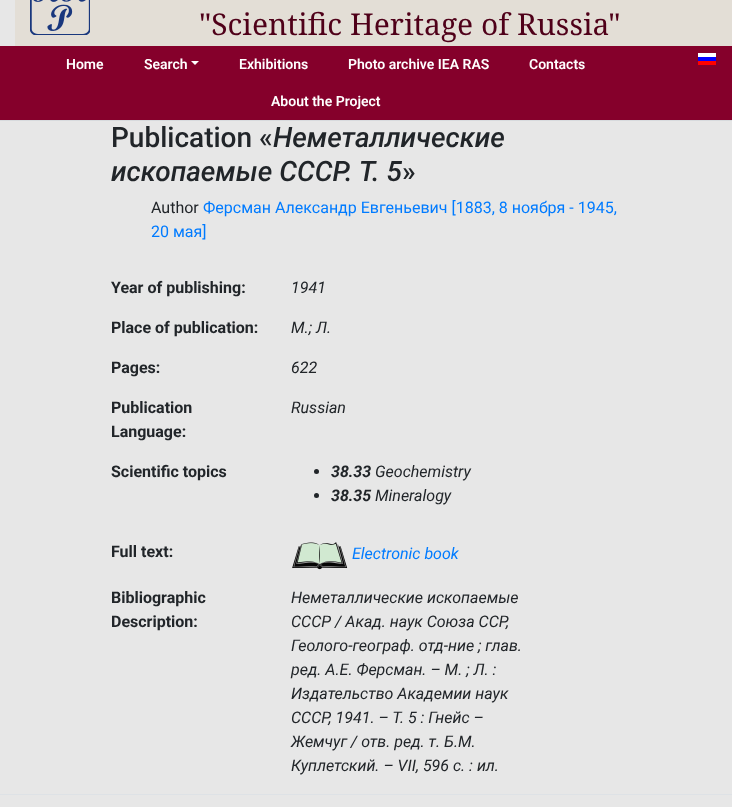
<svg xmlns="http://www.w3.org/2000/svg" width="732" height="807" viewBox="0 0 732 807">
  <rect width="100%" height="100%" fill="rgb(231,231,231)"/>
  <rect x="15" y="0" width="717" height="46" fill="rgb(227,222,214)"/>
  <image x="30" y="0" width="60" height="35" href="pic1.png"/>
  <text x="199" y="35" font-family="Noto Serif" font-size="30" fill="rgb(79,0,25)">"Scientific Heritage of Russia"</text>
  <rect x="0" y="46" width="732" height="74" fill="rgb(133,0,43)"/>
  <rect x="0" y="120" width="732" height="1" fill="rgb(215,218,221)"/>
  <g font-family="Roboto" font-size="14" font-weight="600" fill="rgb(255,255,255)">
    <text x="66" y="69">Home</text>
    <text x="144" y="69">Search</text>
  </g>
  <path d="M191 61H199L195 65Z" fill="rgb(255,255,255)"/>
  <g font-family="Roboto" font-size="14" font-weight="600" fill="rgb(255,255,255)">
    <text x="239" y="69">Exhibitions</text>
    <text x="348" y="69">Photo archive IEA RAS</text>
    <text x="529" y="69">Contacts</text>
    <text x="271" y="106">About the Project</text>
  </g>
  <image x="698" y="53" width="18" height="12" href="pic2.png"/>
  <text x="111" y="147" font-family="Roboto" font-size="28" font-weight="500" fill="rgb(33,37,41)">Publication «</text>
  <g font-family="Roboto" font-size="28" font-weight="500" font-style="italic" fill="rgb(33,37,41)">
    <text x="273" y="147">Неметаллические</text>
    <text x="111" y="181">ископаемые СССР. Т. 5</text>
  </g>
  <text x="402" y="181" font-family="Roboto" font-size="28" font-weight="500" fill="rgb(33,37,41)">»</text>
  <text x="151" y="213" font-family="Roboto" font-size="16" fill="rgb(33,37,41)">Author</text>
  <g font-family="Roboto" font-size="16" fill="rgb(0,123,255)">
    <text x="203" y="213">Ферсман Александр Евгеньевич [1883, 8 ноября - 1945,</text>
    <text x="151" y="237">20 мая]</text>
  </g>
  <text x="111" y="293" font-family="Roboto" font-size="16" font-weight="bold" fill="rgb(33,37,41)">Year of publishing:</text>
  <text x="291" y="293" font-family="Roboto" font-size="16" font-style="italic" fill="rgb(33,37,41)">1941</text>
  <text x="111" y="333" font-family="Roboto" font-size="16" font-weight="bold" fill="rgb(33,37,41)">Place of publication:</text>
  <text x="291" y="333" font-family="Roboto" font-size="16" font-style="italic" fill="rgb(33,37,41)">М.; Л.</text>
  <text x="111" y="373" font-family="Roboto" font-size="16" font-weight="bold" fill="rgb(33,37,41)">Pages:</text>
  <text x="291" y="373" font-family="Roboto" font-size="16" font-style="italic" fill="rgb(33,37,41)">622</text>
  <g font-family="Roboto" font-size="16" font-weight="bold" fill="rgb(33,37,41)">
    <text>
      <tspan x="111" y="413">Publication</tspan>
      <tspan x="111" y="437">Language:</tspan>
    </text>
  </g>
  <text x="291" y="413" font-family="Roboto" font-size="16" font-style="italic" fill="rgb(33,37,41)">Russian</text>
  <text x="111" y="477" font-family="Roboto" font-size="16" font-weight="bold" fill="rgb(33,37,41)">Scientific topics</text>
  <circle cx="316.5" cy="471.5" r="2.5" fill="rgb(33,37,41)"/>
  <text x="331" y="477" font-family="Roboto" font-size="16" font-weight="bold" font-style="italic" fill="rgb(33,37,41)">38.33</text>
  <text x="375" y="477" font-family="Roboto" font-size="16" font-style="italic" fill="rgb(33,37,41)">Geochemistry</text>
  <circle cx="316.5" cy="495.5" r="2.5" fill="rgb(33,37,41)"/>
  <text x="331" y="501" font-family="Roboto" font-size="16" font-weight="bold" font-style="italic" fill="rgb(33,37,41)">38.35</text>
  <text x="375" y="501" font-family="Roboto" font-size="16" font-style="italic" fill="rgb(33,37,41)">Mineralogy</text>
  <text x="111" y="557" font-family="Roboto" font-size="16" font-weight="bold" fill="rgb(33,37,41)">Full text:</text>
  <image x="292" y="542" width="56" height="28" href="pic3.png"/>
  <text x="352" y="559" font-family="Roboto" font-size="16" font-style="italic" fill="rgb(0,123,255)">Electronic book</text>
  <g font-family="Roboto" font-size="16" font-weight="bold" fill="rgb(33,37,41)">
    <text>
      <tspan x="111" y="603">Bibliographic</tspan>
      <tspan x="111" y="627">Description:</tspan>
    </text>
  </g>
  <g font-family="Roboto" font-size="16" font-style="italic" fill="rgb(33,37,41)">
    <text>
      <tspan x="291" y="603">Неметаллические ископаемые</tspan>
      <tspan x="291" y="627">СССР / Акад. наук Союза ССР,</tspan>
      <tspan x="291" y="651">Геолого-географ. отд-ние ; глав.</tspan>
      <tspan x="291" y="675">ред. А.Е. Ферсман. – М. ; Л. :</tspan>
      <tspan x="291" y="699">Издательство Академии наук</tspan>
      <tspan x="291" y="723">СССР, 1941. – Т. 5 : Гнейс –</tspan>
      <tspan x="291" y="747">Жемчуг / отв. ред. т. Б.М.</tspan>
      <tspan x="291" y="771">Куплетский. – VII, 596 с. : ил.</tspan>
    </text>
  </g>
  <rect x="0" y="794" width="732" height="1" fill="rgb(222,226,230)"/>
</svg>
